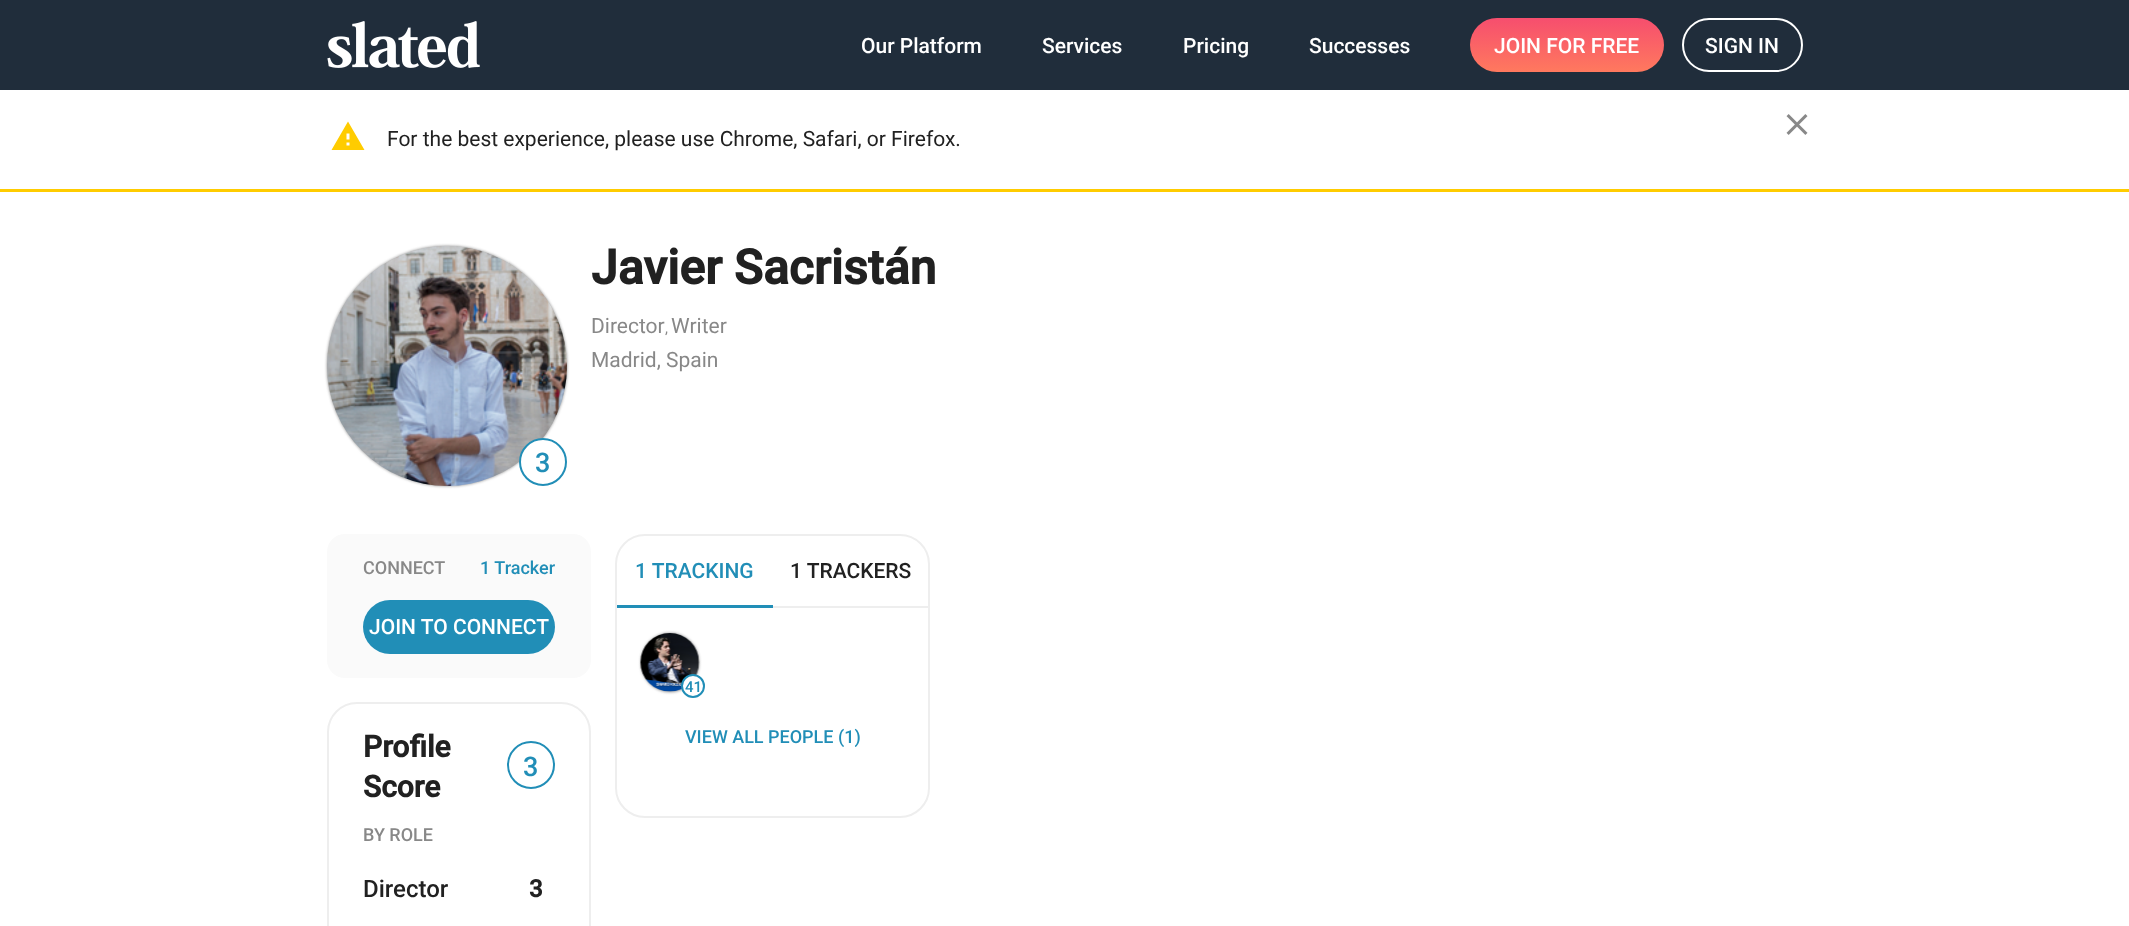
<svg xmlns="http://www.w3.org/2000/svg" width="2129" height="926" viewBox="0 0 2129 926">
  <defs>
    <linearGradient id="g1" gradientUnits="userSpaceOnUse" x1="1567" y1="18" x2="1567" y2="72"><stop offset="0" stop-color="rgb(246,78,110)"/><stop offset="1" stop-color="rgb(255,121,94)"/></linearGradient>
  </defs>
  <rect width="100%" height="100%" fill="rgb(255,255,255)"/>
  <rect x="0" y="0" width="2129" height="90" fill="rgb(32,45,59)"/>
  <image x="327" y="21" width="153" height="47" href="pic1.png"/>
  <g font-family="Roboto" font-size="21" font-weight="500" fill="rgb(255,255,255)">
    <text x="861" y="53">Our Platform</text>
    <text x="1042" y="53">Services</text>
    <text x="1183" y="53">Pricing</text>
    <text x="1309" y="53">Successes</text>
  </g>
  <rect x="1470" y="18" width="194" height="54" rx="27" fill="url(#g1)"/>
  <text x="1494" y="53" font-family="Roboto" font-size="21" font-weight="500" fill="rgb(255,255,255)">JOIN FOR FREE</text>
  <rect x="1683" y="19" width="119" height="52" rx="26" fill="none" stroke="rgb(255,255,255)" stroke-width="2"/>
  <text x="1705" y="53" font-family="Roboto" font-size="21" font-weight="500" fill="rgb(255,255,255)">SIGN IN</text>
  <rect x="0" y="189" width="2129" height="3" fill="rgb(255,204,0)"/>
  <image x="1786" y="114" width="22" height="21" href="pic2.png"/>
  <path d="M349.5 139.5V133.5H346.5V139.5ZM349.5 145.5V142.5H346.5V145.5ZM331.5 150L348 121.5L364.5 150Z" fill="rgb(255,204,0)"/>
  <text x="387" y="146" font-family="Roboto" font-size="21" fill="rgb(33,33,33)">For the best experience, please use Chrome, Safari, or Firefox.</text>
  <text x="591" y="284" font-family="Roboto" font-size="48" font-weight="bold" fill="rgb(33,33,33)">Javier Sacristán</text>
  <text x="591" y="333" font-family="Roboto" font-size="21" fill="rgb(136,136,136)">Director</text>
  <text x="665" y="333" font-family="Roboto" font-size="15" fill="rgb(136,136,136)">,</text>
  <g font-family="Roboto" font-size="21" fill="rgb(136,136,136)">
    <text x="671" y="333">Writer</text>
    <text x="591" y="367">Madrid, Spain</text>
  </g>
  <rect x="327" y="246" width="240" height="240" rx="120" fill="rgb(136,136,136)" filter="blur(1.5px)"/>
  <image x="327" y="246" width="240" height="240" href="pic3.png"/>
  <circle cx="543" cy="462" r="23" fill="rgb(255,255,255)" stroke="rgb(33,142,183)" stroke-width="2"/>
  <text x="535" y="472" font-family="Roboto" font-size="27" font-weight="500" fill="rgb(33,142,183)">3</text>
  <rect x="327" y="534" width="264" height="144" rx="18" fill="rgb(250,250,250)"/>
  <text x="363" y="574" font-family="Roboto" font-size="18" font-weight="500" fill="rgb(136,136,136)">CONNECT</text>
  <text x="480" y="574" font-family="Roboto" font-size="18" font-weight="500" fill="rgb(33,142,183)">1 Tracker</text>
  <rect x="363" y="600" width="192" height="54" rx="27" fill="rgb(33,142,183)"/>
  <text x="369" y="634" font-family="Roboto" font-size="21" font-weight="500" fill="rgb(255,255,255)">JOIN TO CONNECT</text>
  <rect x="328" y="703" width="262" height="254" rx="29" fill="none" stroke="rgb(238,238,238)" stroke-width="2"/>
  <g font-family="Roboto" font-size="30" font-weight="bold" fill="rgb(33,33,33)">
    <text>
      <tspan x="363" y="757">Profile</tspan>
      <tspan x="363" y="797">Score</tspan>
    </text>
  </g>
  <circle cx="531" cy="765" r="23" fill="none" stroke="rgb(33,142,183)" stroke-width="2"/>
  <text x="523" y="776" font-family="Roboto" font-size="27" font-weight="500" fill="rgb(33,142,183)">3</text>
  <text x="363" y="841" font-family="Roboto" font-size="18" font-weight="500" fill="rgb(136,136,136)">BY ROLE</text>
  <text x="363" y="897" font-family="Roboto" font-size="24" font-weight="500" fill="rgb(33,33,33)">Director</text>
  <text x="529" y="897" font-family="Roboto" font-size="24" font-weight="bold" fill="rgb(33,33,33)">3</text>
  <rect x="616" y="535" width="313" height="282" rx="29" fill="none" stroke="rgb(238,238,238)" stroke-width="2"/>
  <text x="635" y="578" font-family="Roboto" font-size="21" font-weight="500" fill="rgb(33,142,183)">1 TRACKING</text>
  <text x="790" y="578" font-family="Roboto" font-size="21" font-weight="500" fill="rgb(33,33,33)">1 TRACKERS</text>
  <rect x="617" y="605" width="156" height="3" fill="rgb(33,142,183)"/>
  <rect x="773" y="606" width="156" height="2" fill="rgb(238,238,238)"/>
  <rect x="641" y="633" width="58" height="59" rx="29" fill="rgb(136,136,136)" filter="blur(1.5px)"/>
  <image x="640" y="633" width="60" height="59" href="pic4.png"/>
  <circle cx="693" cy="686" r="11" fill="rgb(255,255,255)" stroke="rgb(33,142,183)" stroke-width="2"/>
  <text x="685" y="692" font-family="Roboto" font-size="15" font-weight="500" fill="rgb(33,142,183)">41</text>
  <text x="685" y="743" font-family="Roboto" font-size="18" font-weight="500" fill="rgb(33,142,183)">VIEW ALL PEOPLE (1)</text>
</svg>
